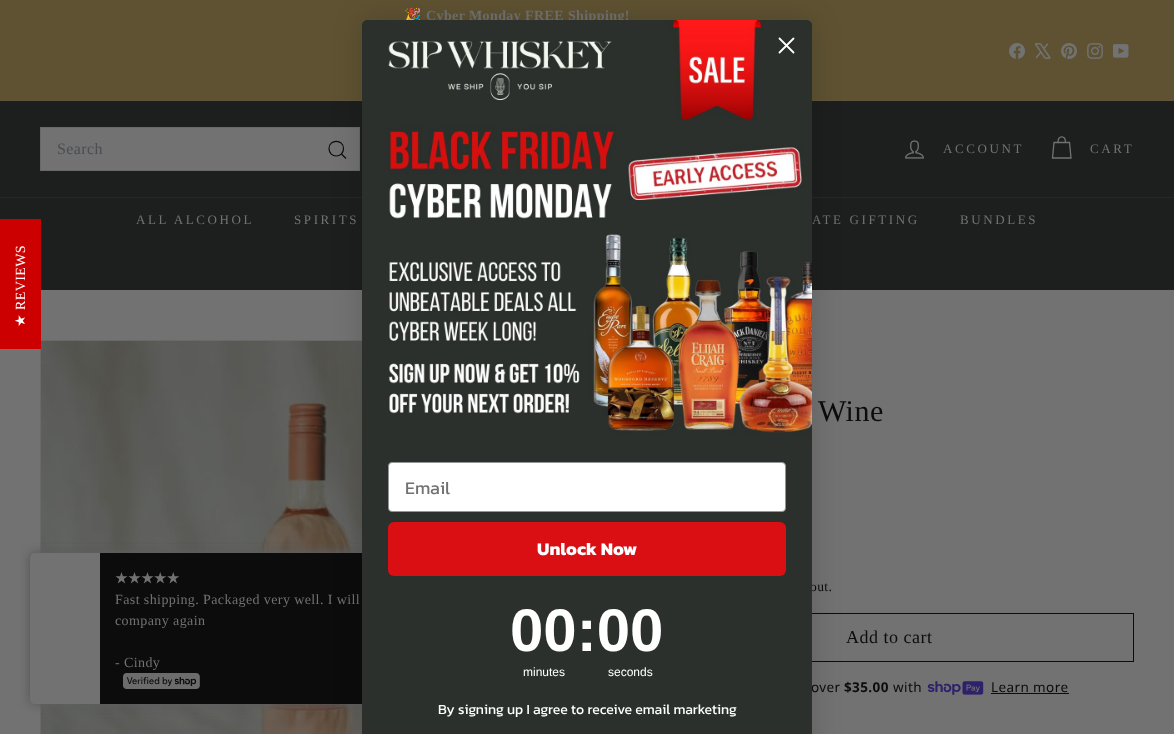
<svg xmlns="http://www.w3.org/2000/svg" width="1174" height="734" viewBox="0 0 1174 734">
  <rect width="100%" height="100%" fill="rgb(114,114,114)"/>
  <rect x="0" y="198" width="1174" height="92" fill="rgb(29,31,30)"/>
  <rect x="40.5" y="340.5" width="535" height="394" fill="none" stroke="rgb(105,105,102)"/>
  <rect x="0" y="219" width="41" height="130" fill="rgb(204,0,0)"/>
  <text x="25" y="310" transform="rotate(-90 25 310)" font-family="Liberation Serif" font-size="14" letter-spacing="0.4" fill="rgb(255,255,255)">REVIEWS</text>
  <text x="25" y="327" transform="rotate(-90 25 327)" font-family="DejaVu Sans" font-size="14" letter-spacing="0.4" fill="rgb(255,255,255)">★</text>
  <rect x="0" y="0" width="1174" height="100" fill="rgb(94,82,50)"/>
  <text x="404" y="20" font-family="Noto Color Emoji" font-size="14" letter-spacing="0.4" fill="rgb(114,114,114)">🎉</text>
  <text x="426" y="20" font-family="Liberation Serif" font-size="14" font-weight="bold" letter-spacing="0.4" fill="rgb(114,114,114)">Cyber Monday FREE Shipping!</text>
  <image x="1009" y="43" width="16" height="16" href="pic1.png"/>
  <image x="1035" y="43" width="16" height="16" href="pic2.png"/>
  <image x="1061" y="43" width="16" height="16" href="pic3.png"/>
  <image x="1087" y="43" width="16" height="16" href="pic4.png"/>
  <image x="1113" y="44" width="16" height="14" href="pic5.png"/>
  <rect x="0" y="100" width="1174" height="1" fill="rgb(97,86,60)"/>
  <rect x="0" y="101" width="1174" height="96" fill="rgb(29,31,30)"/>
  <rect x="40.5" y="127.5" width="319" height="43" fill="rgb(114,114,114)" stroke="rgb(105,105,102)"/>
  <text x="57" y="154" font-family="Liberation Serif" font-size="16" letter-spacing="0.4" fill="rgb(74,77,82)">Search</text>
  <path d="M343.5 148.5C343.5 158.5 329 158.5 329 148.5C329 139 343.5 139 343.5 148.5M346 158.5L341.5 154" fill="none" stroke="rgb(12,12,12)" stroke-width="1.2"/>
  <image x="905" y="140" width="19" height="19" href="pic6.png"/>
  <text x="943" y="153" font-family="Liberation Serif" font-size="13" letter-spacing="2.6" fill="rgb(114,114,114)">ACCOUNT</text>
  <path d="M1058 142.5C1058 135 1065.5 135 1065.5 142.5M1054 142.5H1069.5L1071 158H1052.5Z" fill="none" stroke="rgb(114,114,114)" stroke-width="1.3"/>
  <text x="1090" y="153" font-family="Liberation Serif" font-size="13" letter-spacing="2.6" fill="rgb(114,114,114)">CART</text>
  <rect x="0" y="197" width="1174" height="1" fill="rgb(38,40,38)"/>
  <g font-family="Liberation Serif" font-size="13" letter-spacing="2.6" fill="rgb(114,114,114)">
    <text x="136" y="224">ALL ALCOHOL</text>
    <text x="294" y="224">SPIRITS</text>
    <text x="812" y="224">ATE GIFTING</text>
    <text x="960" y="224">BUNDLES</text>
  </g>
  <image x="41" y="341" width="321" height="393" href="pic7.png"/>
  <text x="818" y="421" font-family="Liberation Serif" font-size="30" letter-spacing="0.5" fill="rgb(12,12,12)">Wine</text>
  <text x="810" y="591" font-family="Liberation Serif" font-size="13.5" letter-spacing="0.4" fill="rgb(12,12,12)">out.</text>
  <rect x="643.5" y="613.5" width="490" height="48" fill="none" stroke="rgb(12,12,12)"/>
  <text x="846" y="643" font-family="Liberation Serif" font-size="18" letter-spacing="0.5" fill="rgb(12,12,12)">Add to cart</text>
  <text x="811" y="692" font-family="Noto Sans" font-size="13.5" letter-spacing="0.4" fill="rgb(12,12,12)">over</text>
  <text x="844" y="692" font-family="Noto Sans" font-size="13.5" font-weight="bold" letter-spacing="0.4" fill="rgb(12,12,12)">$35.00</text>
  <text x="893" y="692" font-family="Noto Sans" font-size="13.5" letter-spacing="0.4" fill="rgb(12,12,12)">with</text>
  <image x="927" y="681" width="57" height="14" href="pic8.png"/>
  <text x="991" y="692" font-family="Noto Sans" font-size="13.5" letter-spacing="0.4" fill="rgb(12,12,12)">Learn more</text>
  <rect x="991" y="693" width="78" height="1" fill="rgb(12,12,12)"/>
  <rect x="30" y="553" width="500" height="151" rx="7" fill="rgb(94,94,94)" filter="blur(5px)"/>
  <rect x="30" y="553" width="500" height="151" rx="7" fill="rgb(94,94,94)" filter="blur(5px)"/>
  <rect x="30" y="553" width="500" height="151" rx="7" fill="rgb(12,12,12)"/>
  <path d="M35 553H100V704H35C32 704 30 702 30 699V558C30 555 32 553 35 553Z" fill="rgb(114,114,114)"/>
  <text x="115" y="583" font-family="DejaVu Sans" font-size="14" font-weight="bold" letter-spacing="0.4" fill="rgb(114,114,114)">★★★★★</text>
  <g font-family="Liberation Serif" font-size="14" letter-spacing="0.4" fill="rgb(114,114,114)">
    <text>
      <tspan x="115" y="604">Fast shipping. Packaged very well. I will</tspan>
      <tspan x="115" y="625">company again</tspan>
    </text>
    <text x="115" y="667">- Cindy</text>
  </g>
  <image x="123" y="673" width="77" height="16" href="pic9.png"/>
  <rect x="362" y="20" width="450" height="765" rx="6" fill="rgba(0,0,0,0.15)" filter="blur(15px)"/>
  <path d="M368 20H806C809.5 20 812 22.5 812 26V734H362V26C362 22.5 364.5 20 368 20Z" fill="rgb(43,48,45)"/>
  <image x="362" y="20" width="450" height="414" href="pic10.png"/>
  <path d="M779.5 38.5L793.5 52.5M779.5 52.5L793.5 38.5Z" fill="none" stroke="rgb(255,255,255)" stroke-width="1.8" stroke-linecap="round" stroke-linejoin="round"/>
  <rect x="388.5" y="462.5" width="397" height="49" rx="3.5" fill="rgb(255,255,255)" stroke="rgb(148,149,150)"/>
  <text x="405" y="494" font-family="Kanit" font-size="18" fill="rgb(114,114,114)">Email</text>
  <rect x="388" y="522" width="398" height="54" rx="6" fill="rgb(217,15,20)"/>
  <text x="537" y="555" font-family="Kanit" font-size="18" font-weight="bold" fill="rgb(255,255,255)">Unlock Now</text>
  <text x="510" y="651" font-family="Liberation Sans" font-size="60" font-weight="bold" fill="rgb(255,255,255)">00:00</text>
  <g font-family="Liberation Sans" font-size="12" fill="rgb(255,255,255)">
    <text x="523" y="676">minutes</text>
    <text x="608" y="676">seconds</text>
  </g>
  <text x="438" y="714" font-family="Kanit" font-size="14" fill="rgb(255,255,255)">By signing up I agree to receive email marketing</text>
</svg>
